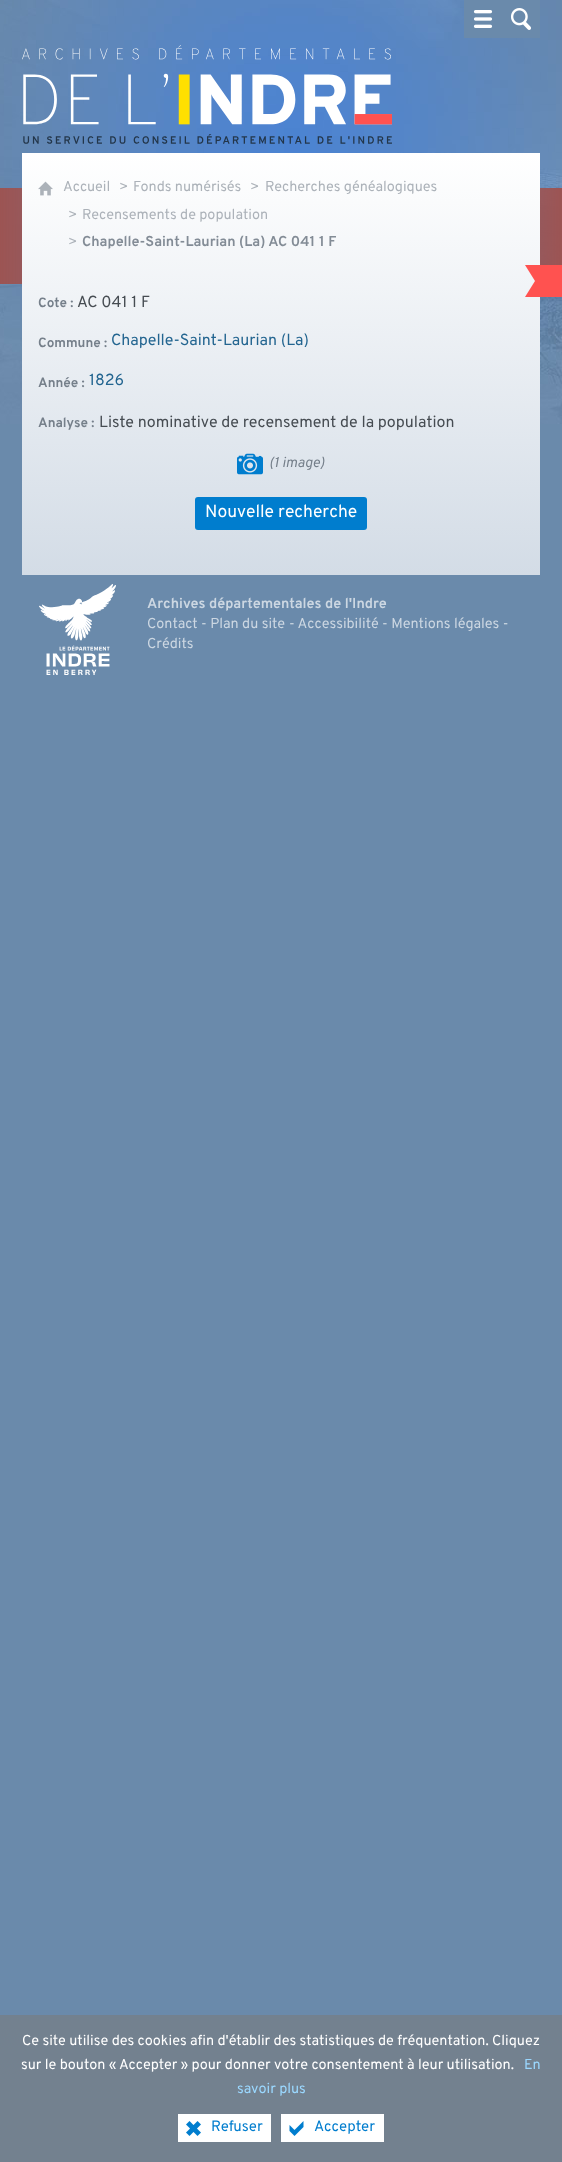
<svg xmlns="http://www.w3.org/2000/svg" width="562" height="2162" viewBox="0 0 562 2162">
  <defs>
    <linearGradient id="g1" gradientUnits="userSpaceOnUse" x1="281" y1="153" x2="281" y2="575"><stop offset="0" stop-color="rgb(255,255,255)"/><stop offset="1" stop-color="rgb(211,220,230)"/></linearGradient>
  </defs>
  <rect width="100%" height="100%" fill="rgb(106,138,171)"/>
  <image x="0" y="0" width="562" height="424" href="pic1.png"/>
  <rect x="464" y="0" width="76" height="38" fill="rgb(106,138,171)"/>
  <image x="473" y="10" width="20" height="18" href="pic2.png"/>
  <image x="510" y="8" width="21" height="22" href="pic3.png"/>
  <image x="22" y="45" width="370" height="99" href="pic4.png"/>
  <rect x="22" y="153" width="518" height="422" fill="url(#g1)"/>
  <image x="38" y="181" width="15" height="15" href="pic5.png"/>
  <g font-family="Overpass" font-size="14.4" fill="rgb(172,178,185)">
    <text x="63" y="191">Accueil</text>
    <text x="119" y="191">&gt;</text>
    <text x="133" y="191">Fonds numérisés</text>
    <text x="250" y="191">&gt;</text>
    <text x="265" y="191">Recherches généalogiques</text>
    <text x="68" y="219">&gt;</text>
    <text x="82" y="219">Recensements de population</text>
    <text x="68" y="246">&gt;</text>
  </g>
  <text x="82" y="246" font-family="Overpass" font-size="14.4" font-weight="bold" fill="rgb(131,140,150)">Chapelle-Saint-Laurian (La) AC 041 1 F</text>
  <text x="38" y="307" font-family="Overpass" font-size="13.5" font-weight="bold" fill="rgb(117,127,138)">Cote :</text>
  <text x="77" y="307" font-family="Overpass" font-size="16" fill="rgb(70,76,82)">AC 041 1 F</text>
  <text x="38" y="347" font-family="Overpass" font-size="13.5" font-weight="bold" fill="rgb(117,127,138)">Commune :</text>
  <text x="111" y="345" font-family="Overpass" font-size="16" fill="rgb(35,101,144)">Chapelle-Saint-Laurian (La)</text>
  <text x="38" y="387" font-family="Overpass" font-size="13.5" font-weight="bold" fill="rgb(117,127,138)">Année :</text>
  <text x="89" y="385" font-family="Overpass" font-size="16" fill="rgb(35,101,144)">1826</text>
  <text x="38" y="427" font-family="Overpass" font-size="13.5" font-weight="bold" fill="rgb(117,127,138)">Analyse :</text>
  <text x="99" y="427" font-family="Overpass" font-size="16" fill="rgb(70,76,82)">Liste nominative de recensement de la population</text>
  <image x="237" y="453" width="26" height="22" href="pic6.png"/>
  <text x="269" y="467" font-family="Overpass" font-size="14.4" font-style="italic" fill="rgb(117,127,138)">(1 image)</text>
  <rect x="195" y="497" width="172" height="33" rx="3" fill="rgb(0,125,206)"/>
  <text x="205" y="517" font-family="Overpass" font-size="17.5" fill="rgb(255,255,255)">Nouvelle recherche</text>
  <path d="M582 297H525L535 281L525 265H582Z" fill="rgb(255,82,80)"/>
  <image x="39" y="584" width="77" height="91" href="pic7.png"/>
  <text x="147" y="608" font-family="Overpass" font-size="14.4" font-weight="bold" fill="rgb(204,215,226)">Archives départementales de l'Indre</text>
  <g font-family="Overpass" font-size="14.4" fill="rgb(204,215,226)">
    <text x="147" y="628">Contact - Plan du site</text>
    <text x="289" y="628">- Accessibilité - Mentions légales -</text>
    <text x="147" y="648">Crédits</text>
  </g>
  <rect x="0" y="2015" width="562" height="147" fill="rgb(115,129,143)"/>
  <g font-family="Overpass" font-size="14.4" fill="rgb(255,255,255)">
    <text x="22" y="2045">Ce site utilise des cookies afin d'établir des statistiques de fréquentation. Cliquez</text>
    <text x="21" y="2069">sur le bouton « Accepter » pour donner votre consentement à leur utilisation.</text>
  </g>
  <g font-family="Overpass" font-size="14.4" fill="rgb(155,216,255)">
    <text x="524" y="2069">En</text>
    <text x="237" y="2093">savoir plus</text>
  </g>
  <rect x="178" y="2114" width="93" height="28" fill="rgb(255,255,255)"/>
  <image x="186" y="2121" width="15" height="15" href="pic8.png"/>
  <text x="211" y="2131" font-family="Overpass" font-size="15" fill="rgb(0,125,206)">Refuser</text>
  <rect x="281" y="2114" width="103" height="28" fill="rgb(255,255,255)"/>
  <image x="289" y="2121" width="15" height="15" href="pic9.png"/>
  <text x="314" y="2131" font-family="Overpass" font-size="15" fill="rgb(0,125,206)">Accepter</text>
</svg>
